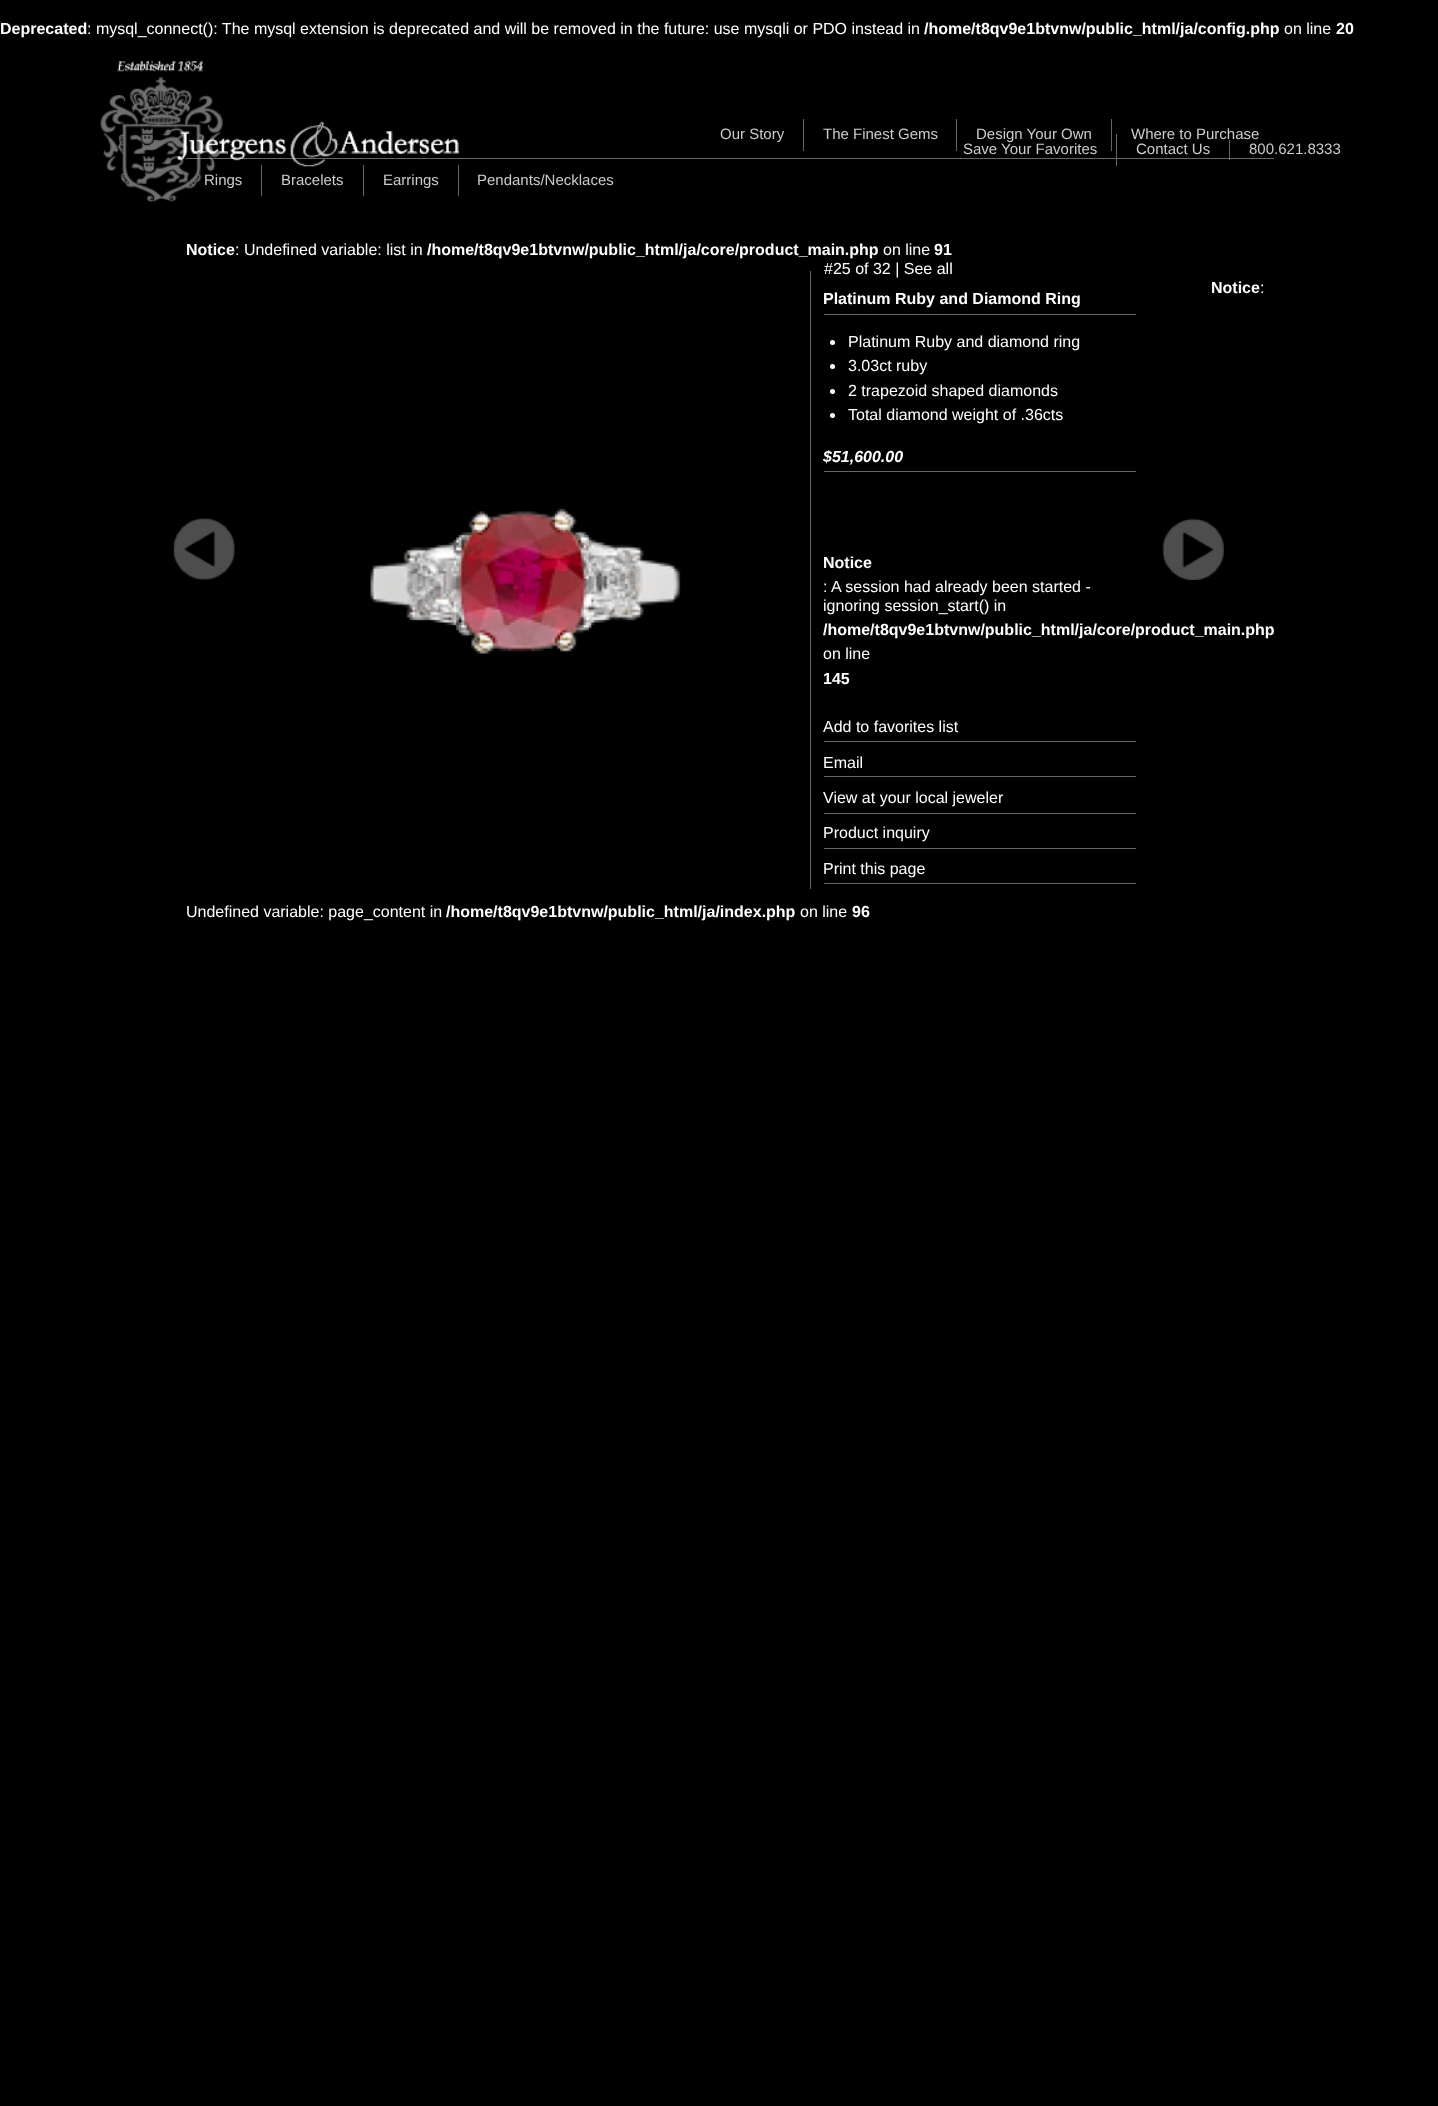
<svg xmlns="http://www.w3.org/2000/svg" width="1438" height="2106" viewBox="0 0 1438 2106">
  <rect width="100%" height="100%" fill="rgb(0,0,0)"/>
  <text x="0" y="34" font-family="Liberation Sans" font-size="16" font-weight="bold" fill="rgb(255,255,255)">Deprecated</text>
  <text x="87" y="34" font-family="Liberation Sans" font-size="16" fill="rgb(255,255,255)">: mysql_connect(): The mysql extension is deprecated and will be removed in the future: use mysqli or PDO instead in</text>
  <text x="924" y="34" font-family="Liberation Sans" font-size="16" font-weight="bold" fill="rgb(255,255,255)">/home/t8qv9e1btvnw/public_html/ja/config.php</text>
  <text x="1284" y="34" font-family="Liberation Sans" font-size="16" fill="rgb(255,255,255)">on line</text>
  <text x="1336" y="34" font-family="Liberation Sans" font-size="16" font-weight="bold" fill="rgb(255,255,255)">20</text>
  <rect x="1116" y="134" width="1" height="32" fill="rgb(102,102,102)"/>
  <rect x="1229" y="140" width="1" height="20" fill="rgb(102,102,102)"/>
  <rect x="186" y="158" width="1088" height="1" fill="rgb(102,102,102)"/>
  <image x="100" y="61" width="359" height="142" href="pic1.png"/>
  <text x="720" y="139" font-family="Liberation Sans" font-size="15" fill="rgb(204,204,204)">Our Story</text>
  <rect x="803" y="119" width="1" height="32" fill="rgb(102,102,102)"/>
  <text x="823" y="139" font-family="Liberation Sans" font-size="15" fill="rgb(204,204,204)">The Finest Gems</text>
  <rect x="956" y="119" width="1" height="32" fill="rgb(102,102,102)"/>
  <text x="976" y="139" font-family="Liberation Sans" font-size="15" fill="rgb(204,204,204)">Design Your Own</text>
  <rect x="1111" y="119" width="1" height="32" fill="rgb(102,102,102)"/>
  <g font-family="Liberation Sans" font-size="15" fill="rgb(204,204,204)">
    <text x="1131" y="139">Where to Purchase</text>
    <text x="963" y="154">Save Your Favorites</text>
    <text x="1136" y="154">Contact Us</text>
    <text x="1249" y="154">800.621.8333</text>
    <text x="204" y="185">Rings</text>
  </g>
  <rect x="261" y="165" width="1" height="31" fill="rgb(102,102,102)"/>
  <text x="281" y="185" font-family="Liberation Sans" font-size="15" fill="rgb(204,204,204)">Bracelets</text>
  <rect x="363" y="165" width="1" height="31" fill="rgb(102,102,102)"/>
  <text x="383" y="185" font-family="Liberation Sans" font-size="15" fill="rgb(204,204,204)">Earrings</text>
  <rect x="458" y="165" width="1" height="31" fill="rgb(102,102,102)"/>
  <text x="477" y="185" font-family="Liberation Sans" font-size="15" fill="rgb(204,204,204)">Pendants/Necklaces</text>
  <text x="186" y="255" font-family="Liberation Sans" font-size="16" font-weight="bold" fill="rgb(255,255,255)">Notice</text>
  <text x="235" y="255" font-family="Liberation Sans" font-size="16" fill="rgb(255,255,255)">: Undefined variable: list in</text>
  <text x="427" y="255" font-family="Liberation Sans" font-size="16" font-weight="bold" fill="rgb(255,255,255)">/home/t8qv9e1btvnw/public_html/ja/core/product_main.php</text>
  <text x="883" y="255" font-family="Liberation Sans" font-size="16" fill="rgb(255,255,255)">on line</text>
  <text x="934" y="255" font-family="Liberation Sans" font-size="16" font-weight="bold" fill="rgb(255,255,255)">91</text>
  <text x="824" y="274" font-family="Liberation Sans" font-size="16" fill="rgb(255,255,255)">#25 of 32 | See all</text>
  <text x="1211" y="293" font-family="Liberation Sans" font-size="16" font-weight="bold" fill="rgb(255,255,255)">Notice</text>
  <text x="1260" y="293" font-family="Liberation Sans" font-size="16" fill="rgb(255,255,255)">:</text>
  <image x="173" y="518" width="62" height="62" href="pic2.png"/>
  <image x="370" y="508" width="311" height="146" href="pic3.png"/>
  <rect x="810" y="271" width="1" height="618" fill="rgb(102,102,102)"/>
  <rect x="824" y="314" width="312" height="1" fill="rgb(102,102,102)"/>
  <text x="823" y="304" font-family="Liberation Sans" font-size="16" font-weight="bold" fill="rgb(255,255,255)">Platinum Ruby and Diamond Ring</text>
  <circle cx="832.5" cy="342.5" r="2.5" fill="rgb(255,255,255)"/>
  <text x="848" y="347" font-family="Liberation Sans" font-size="16" fill="rgb(255,255,255)">Platinum Ruby and diamond ring</text>
  <circle cx="832.5" cy="366.5" r="2.5" fill="rgb(255,255,255)"/>
  <text x="848" y="371" font-family="Liberation Sans" font-size="16" fill="rgb(255,255,255)">3.03ct ruby</text>
  <circle cx="832.5" cy="391.5" r="2.5" fill="rgb(255,255,255)"/>
  <text x="848" y="396" font-family="Liberation Sans" font-size="16" fill="rgb(255,255,255)">2 trapezoid shaped diamonds</text>
  <circle cx="832.5" cy="415.5" r="2.5" fill="rgb(255,255,255)"/>
  <text x="848" y="420" font-family="Liberation Sans" font-size="16" fill="rgb(255,255,255)">Total diamond weight of .36cts</text>
  <rect x="824" y="471" width="312" height="1" fill="rgb(102,102,102)"/>
  <text x="823" y="462" font-family="Liberation Sans" font-size="16" font-weight="bold" font-style="italic" fill="rgb(255,255,255)">$51,600.00</text>
  <rect x="824" y="741" width="312" height="1" fill="rgb(102,102,102)"/>
  <text x="823" y="568" font-family="Liberation Sans" font-size="16" font-weight="bold" fill="rgb(255,255,255)">Notice</text>
  <g font-family="Liberation Sans" font-size="16" fill="rgb(255,255,255)">
    <text x="823" y="592">:</text>
    <text x="831" y="592">A session had already been started -</text>
    <text x="823" y="611">ignoring session_start() in</text>
  </g>
  <text x="823" y="635" font-family="Liberation Sans" font-size="16" font-weight="bold" fill="rgb(255,255,255)">/home/t8qv9e1btvnw/public_html/ja/core/product_main.php</text>
  <text x="823" y="659" font-family="Liberation Sans" font-size="16" fill="rgb(255,255,255)">on line</text>
  <text x="823" y="684" font-family="Liberation Sans" font-size="16" font-weight="bold" fill="rgb(255,255,255)">145</text>
  <text x="823" y="732" font-family="Liberation Sans" font-size="16" fill="rgb(255,255,255)">Add to favorites list</text>
  <rect x="824" y="776" width="312" height="1" fill="rgb(102,102,102)"/>
  <text x="823" y="768" font-family="Liberation Sans" font-size="16" fill="rgb(255,255,255)">Email</text>
  <rect x="824" y="813" width="312" height="1" fill="rgb(102,102,102)"/>
  <text x="823" y="803" font-family="Liberation Sans" font-size="16" fill="rgb(255,255,255)">View at your local jeweler</text>
  <rect x="824" y="848" width="312" height="1" fill="rgb(102,102,102)"/>
  <text x="823" y="838" font-family="Liberation Sans" font-size="16" fill="rgb(255,255,255)">Product inquiry</text>
  <rect x="824" y="883" width="312" height="1" fill="rgb(102,102,102)"/>
  <text x="823" y="874" font-family="Liberation Sans" font-size="16" fill="rgb(255,255,255)">Print this page</text>
  <image x="1162" y="518" width="62" height="62" href="pic4.png"/>
  <text x="186" y="917" font-family="Liberation Sans" font-size="16" fill="rgb(255,255,255)">Undefined variable: page_content in</text>
  <text x="446" y="917" font-family="Liberation Sans" font-size="16" font-weight="bold" fill="rgb(255,255,255)">/home/t8qv9e1btvnw/public_html/ja/index.php</text>
  <text x="800" y="917" font-family="Liberation Sans" font-size="16" fill="rgb(255,255,255)">on line</text>
  <text x="852" y="917" font-family="Liberation Sans" font-size="16" font-weight="bold" fill="rgb(255,255,255)">96</text>
</svg>
